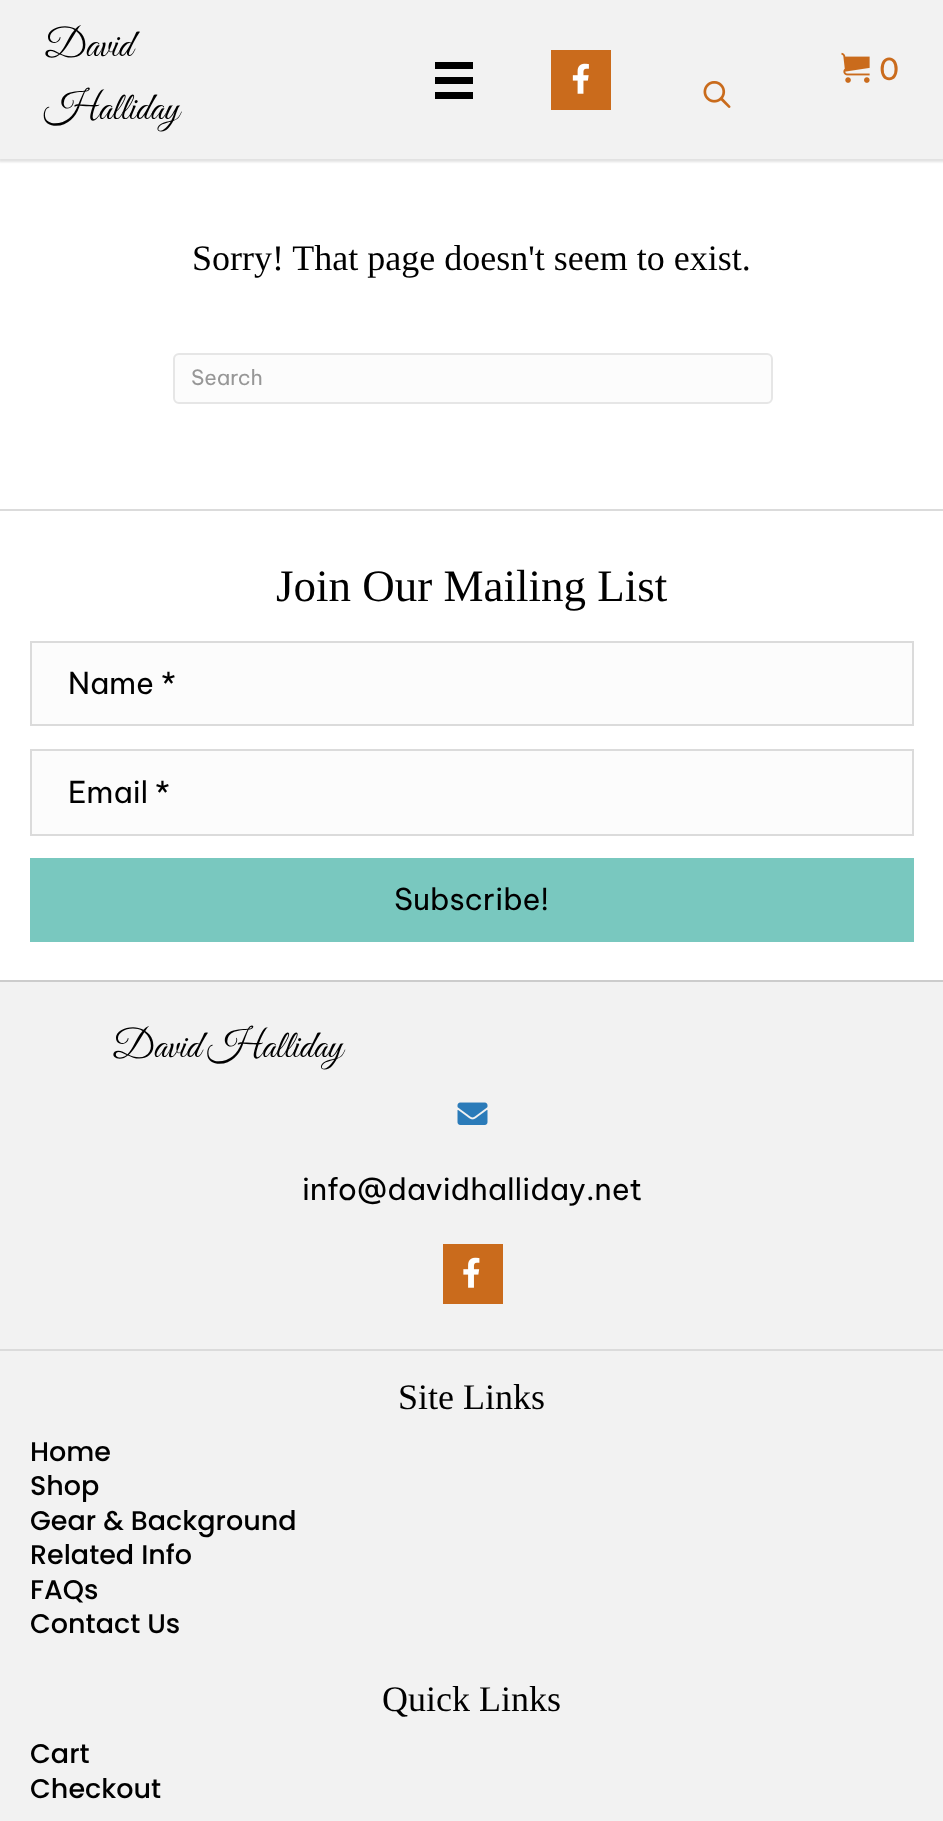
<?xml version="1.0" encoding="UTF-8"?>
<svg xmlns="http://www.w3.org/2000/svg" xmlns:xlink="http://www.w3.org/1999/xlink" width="943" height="1821">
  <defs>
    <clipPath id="clip1"><rect x="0" y="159" width="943" height="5" /></clipPath>
  </defs>
  <rect width="100%" height="100%" fill="#f2f2f2" />
  <rect y="159" width="943" height="350" fill="#ffffff" />
  <g clip-path="url(#clip1)">
    <rect x="-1" width="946" height="162" fill="#c1c1c1" fill-opacity="0.47" filter="blur(1px)" />
  </g>
  <rect x="435" y="62" width="38" height="7" fill="#000000" />
  <rect x="435" y="77" width="38" height="7" fill="#000000" />
  <rect x="435" y="92" width="38" height="7" fill="#000000" />
  <rect x="551" y="50" width="60" height="60" fill="#ca6b1c" />
  <image x="572" y="63" width="17" height="31" xlink:href="image1.png" />
  <image x="841" y="52" width="29" height="31" xlink:href="image2.png" />
  <image x="703" y="81" width="28" height="27" xlink:href="image3.png" />
  <rect x="174" y="354" width="598" height="49" rx="5" fill="#fcfcfc" stroke="#e6e6e6" stroke-width="2" />
  <rect y="511" width="943" height="469" fill="#ffffff" />
  <rect y="509" width="943" height="2" fill="#dbdbdb" />
  <rect x="31" y="642" width="882" height="83" fill="#fcfcfc" stroke="#dbdbdb" stroke-width="2" />
  <rect x="31" y="750" width="882" height="85" fill="#fcfcfc" stroke="#dbdbdb" stroke-width="2" />
  <rect x="30" y="858" width="884" height="84" fill="#79c8bf" />
  <rect y="980" width="943" height="2" fill="#cccccc" />
  <rect y="1349" width="943" height="2" fill="#dbdbdb" />
  <image x="457" y="1102" width="31" height="23" xlink:href="image4.png" />
  <rect x="443" y="1244" width="60" height="60" fill="#ca6b1c" />
  <image x="463" y="1257" width="17" height="31" xlink:href="image5.png" />
  <text x="44" y="56" style="font-family: Great Vibes; font-size: 39px; fill: #000000">David</text>
  <text x="44" y="119" style="font-family: Great Vibes; font-size: 39px; fill: #000000">Halliday</text>
  <text x="879" y="80" style="font-family: Be Vietnam Pro; font-size: 30px; fill: #ca6b1c">0</text>
  <text x="192" y="270" style="font-family: Liberation Serif; font-size: 36px; fill: #000000">Sorry! That page doesn't seem to exist.</text>
  <text x="191" y="385" style="font-family: Be Vietnam Pro; font-size: 21px; fill: #979797">Search</text>
  <text x="276" y="601" style="font-family: Liberation Serif; font-size: 45px; fill: #000000">Join Our Mailing List</text>
  <text x="68" y="694" style="font-family: Be Vietnam Pro; font-size: 30px; fill: #000000">Name *</text>
  <text x="68" y="803" style="font-family: Be Vietnam Pro; font-size: 30px; fill: #000000">Email *</text>
  <text x="394" y="910" style="font-family: Be Vietnam Pro; font-size: 30px; fill: #000000">Subscribe!</text>
  <text x="112" y="1057" style="font-family: Great Vibes; font-size: 39px; fill: #000000">David Halliday</text>
  <text x="302" y="1200" style="font-family: Be Vietnam Pro; font-size: 30px; fill: #000000">info@davidhalliday.net</text>
  <text x="398" y="1409" style="font-family: Liberation Serif; font-size: 36px; fill: #000000">Site Links</text>
  <text x="30" y="1461" style="font-family: Poppins; font-size: 27px; font-weight: 500; fill: #000000">Home</text>
  <text x="30" y="1495" style="font-family: Poppins; font-size: 27px; font-weight: 500; fill: #000000">Shop</text>
  <text x="30" y="1530" style="font-family: Poppins; font-size: 27px; font-weight: 500; fill: #000000">Gear &amp; Background</text>
  <text x="30" y="1564" style="font-family: Poppins; font-size: 27px; font-weight: 500; fill: #000000">Related Info</text>
  <text x="30" y="1599" style="font-family: Poppins; font-size: 27px; font-weight: 500; fill: #000000">FAQs</text>
  <text x="30" y="1633" style="font-family: Poppins; font-size: 27px; font-weight: 500; fill: #000000">Contact Us</text>
  <text x="382" y="1711" style="font-family: Liberation Serif; font-size: 36px; fill: #000000">Quick Links</text>
  <text x="30" y="1763" style="font-family: Poppins; font-size: 27px; font-weight: 500; fill: #000000">Cart</text>
  <text x="30" y="1798" style="font-family: Poppins; font-size: 27px; font-weight: 500; fill: #000000">Checkout</text>
</svg>
